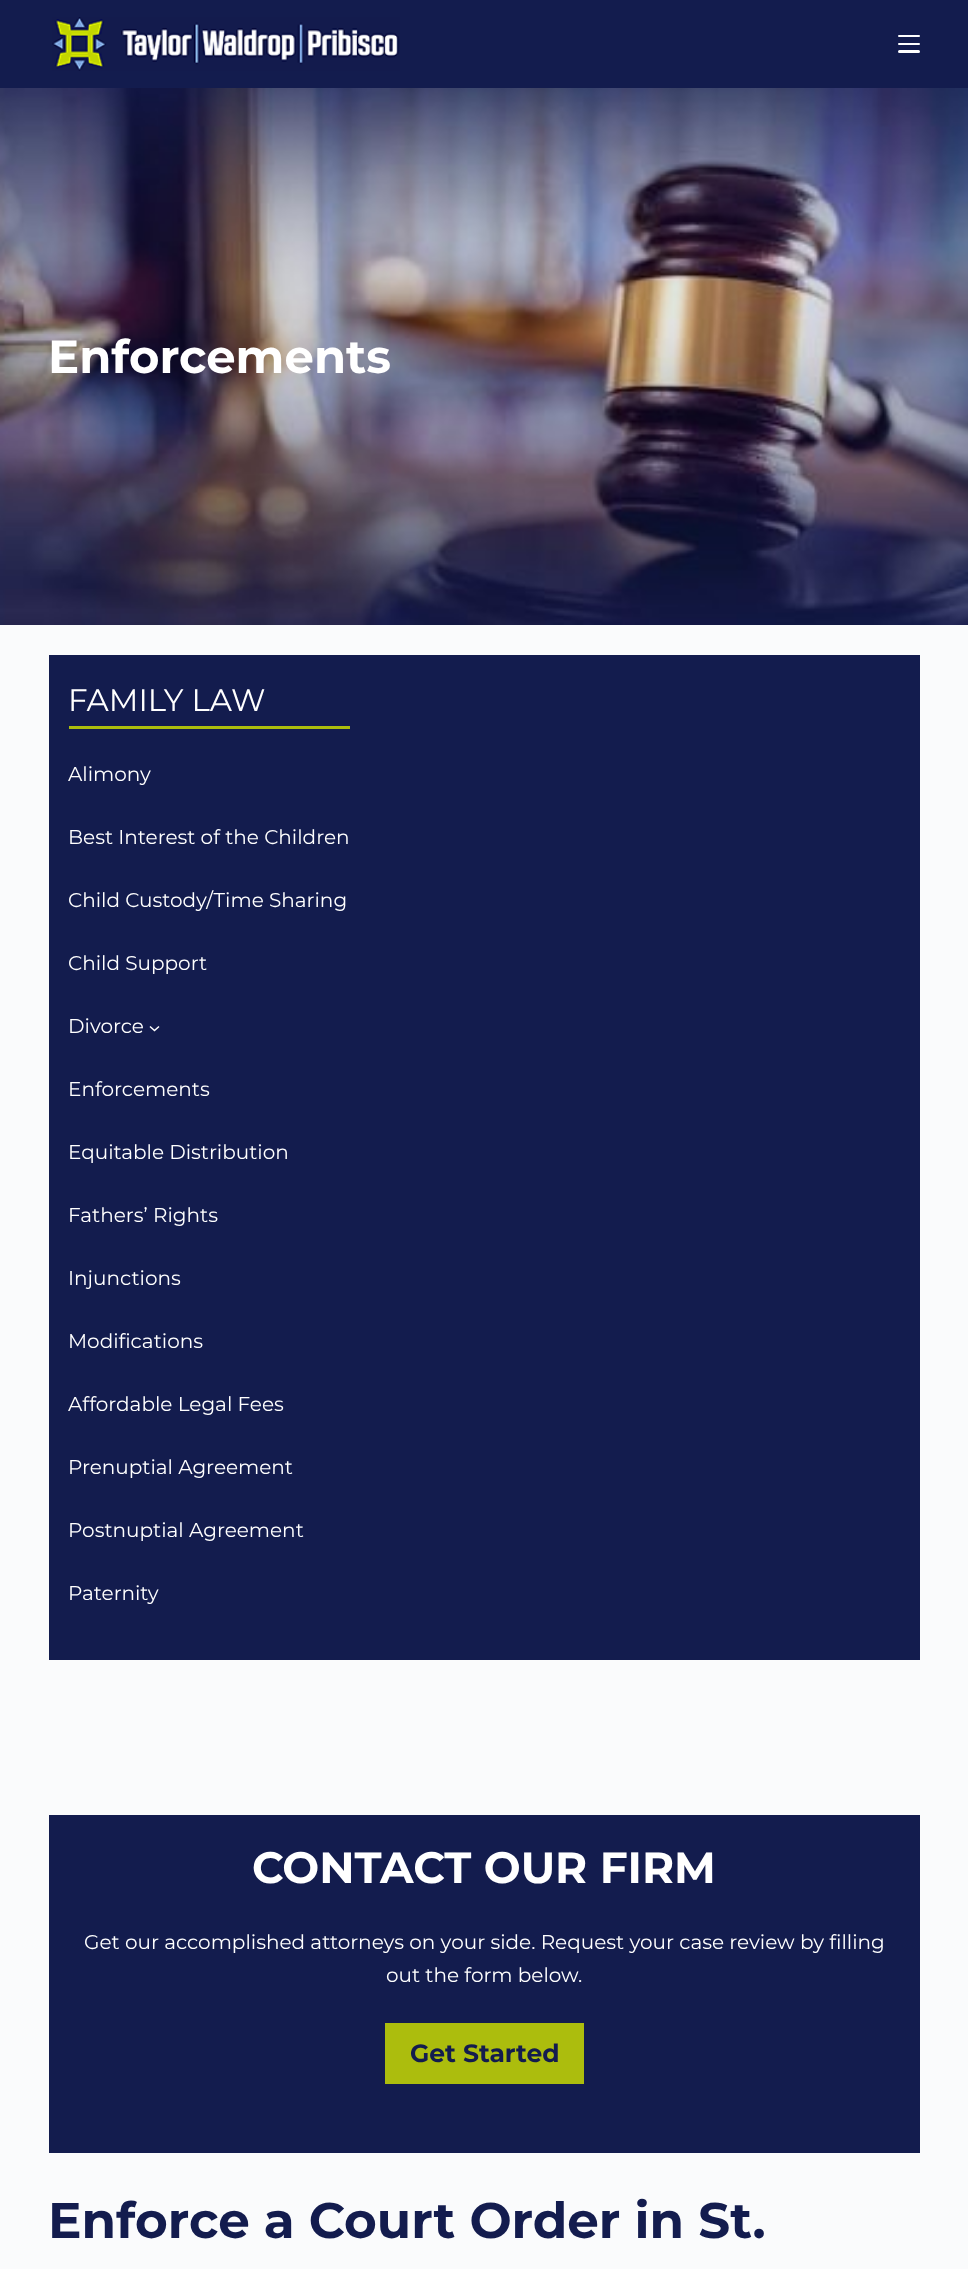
<?xml version="1.0" encoding="UTF-8"?>
<svg xmlns="http://www.w3.org/2000/svg" xmlns:xlink="http://www.w3.org/1999/xlink" width="968" height="2269">
  <rect width="100%" height="100%" fill="#fafbfc" />
  <rect width="968" height="88" fill="#131c4e" />
  <image x="52" y="17" width="348" height="54" xlink:href="image1.png" />
  <rect x="898" y="35" width="22" height="2" rx="1" fill="#ffffff" />
  <rect x="898" y="43" width="22" height="2" rx="1" fill="#ffffff" />
  <rect x="898" y="50" width="22" height="3" rx="1.5" fill="#ffffff" />
  <image x="0" y="88" width="968" height="537" xlink:href="image2.png" />
  <rect x="49" y="655" width="871" height="1005" fill="#131c4e" />
  <rect x="69" y="726" width="281" height="3" fill="#acbd0d" />
  <path d="M 150 1026.5 l 4.5 4 l 4.5 -4" fill="none" stroke="#ffffff" stroke-width="1.5" />
  <rect x="49" y="1815" width="871" height="338" fill="#131c4e" />
  <rect x="385" y="2023" width="199" height="61" fill="#acbd0d" />
  <text x="48" y="373" style="font-family: Montserrat; font-size: 46.5px; font-weight: bold; fill: #ffffff">Enforcements</text>
  <text x="68" y="711" style="font-family: Montserrat; font-size: 31px; fill: #ffffff">FAMILY LAW</text>
  <text x="68" y="781" style="font-family: Montserrat; font-size: 20px; fill: #ffffff">Alimony</text>
  <text x="68" y="844" style="font-family: Montserrat; font-size: 20px; fill: #ffffff">Best Interest of the Children</text>
  <text x="68" y="907" style="font-family: Montserrat; font-size: 20px; fill: #ffffff">Child Custody/Time Sharing</text>
  <text x="68" y="970" style="font-family: Montserrat; font-size: 20px; fill: #ffffff">Child Support</text>
  <text x="68" y="1033" style="font-family: Montserrat; font-size: 20px; fill: #ffffff">Divorce</text>
  <text x="68" y="1096" style="font-family: Montserrat; font-size: 20px; fill: #ffffff">Enforcements</text>
  <text x="68" y="1159" style="font-family: Montserrat; font-size: 20px; fill: #ffffff">Equitable Distribution</text>
  <text x="68" y="1222" style="font-family: Montserrat; font-size: 20px; fill: #ffffff">Fathers’ Rights</text>
  <text x="68" y="1285" style="font-family: Montserrat; font-size: 20px; fill: #ffffff">Injunctions</text>
  <text x="68" y="1348" style="font-family: Montserrat; font-size: 20px; fill: #ffffff">Modifications</text>
  <text x="68" y="1411" style="font-family: Montserrat; font-size: 20px; fill: #ffffff">Affordable Legal Fees</text>
  <text x="68" y="1474" style="font-family: Montserrat; font-size: 20px; fill: #ffffff">Prenuptial Agreement</text>
  <text x="68" y="1537" style="font-family: Montserrat; font-size: 20px; fill: #ffffff">Postnuptial Agreement</text>
  <text x="68" y="1600" style="font-family: Montserrat; font-size: 20px; fill: #ffffff">Paternity</text>
  <text x="252" y="1883" style="font-family: Montserrat; font-size: 43.75px; font-weight: bold; fill: #ffffff">CONTACT OUR FIRM</text>
  <text x="84" y="1949" style="font-family: Montserrat; font-size: 20px; fill: #ffffff">Get our accomplished attorneys on your side. Request your case review by filling</text>
  <text x="386" y="1982" style="font-family: Montserrat; font-size: 20px; fill: #ffffff">out the form below.</text>
  <text x="410" y="2062" style="font-family: Montserrat; font-size: 25px; font-weight: bold; fill: #131c4e">Get Started</text>
  <text x="48" y="2238" style="font-family: Montserrat; font-size: 50px; font-weight: bold; fill: #131c4e">Enforce a Court Order in St.</text>
</svg>
